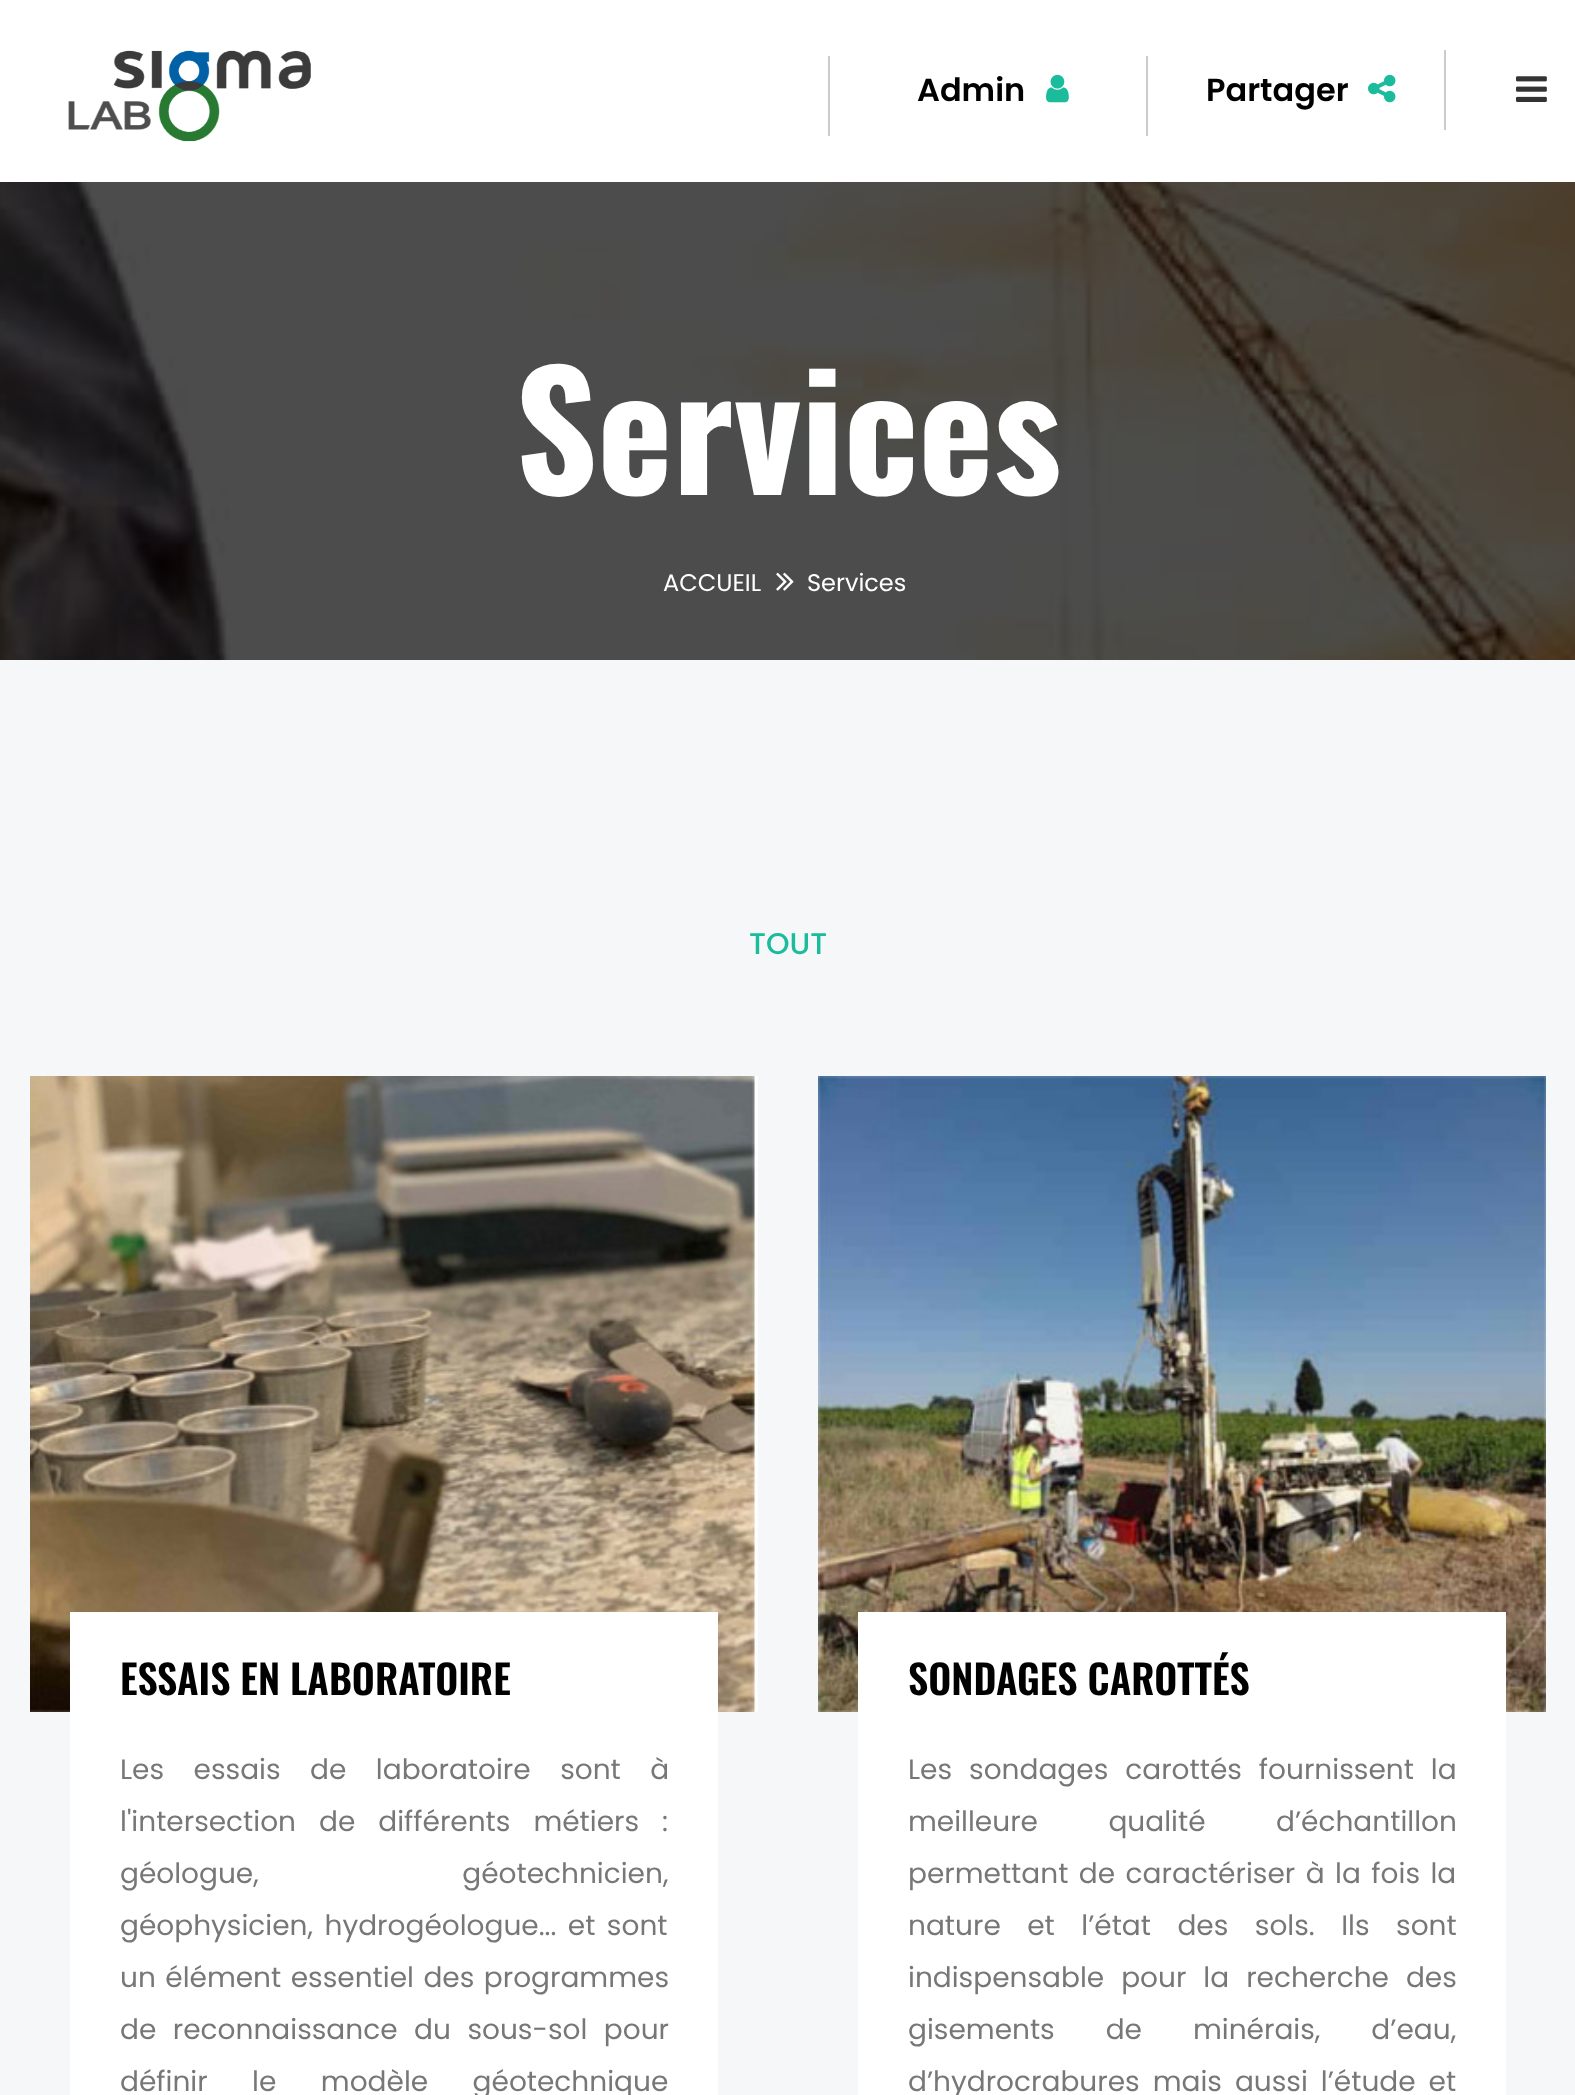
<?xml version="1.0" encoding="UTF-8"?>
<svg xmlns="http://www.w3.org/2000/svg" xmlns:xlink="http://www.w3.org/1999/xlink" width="1575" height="2095">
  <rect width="100%" height="100%" fill="#ffffff" />
  <image x="68" y="50" width="243" height="92" xlink:href="image1.png" />
  <rect x="828" y="56" width="2" height="80" fill="#cccccc" />
  <image x="1046" y="74" width="23" height="29" xlink:href="image2.png" />
  <rect x="1146" y="56" width="2" height="80" fill="#cccccc" />
  <image x="1368" y="74" width="28" height="29" xlink:href="image3.png" />
  <rect x="1444" y="50" width="2" height="80" fill="#cccccc" />
  <image x="1516" y="76" width="31" height="26" xlink:href="image4.png" />
  <image x="0" y="182" width="1575" height="478" xlink:href="image5.png" />
  <image x="776" y="572" width="18" height="19" xlink:href="image6.png" />
  <rect y="660" width="1575" height="1435" fill="#f6f7f8" />
  <image x="30" y="1076" width="728" height="636" xlink:href="image7.png" />
  <rect x="70" y="1612" width="648" height="483" fill="#ffffff" />
  <image x="818" y="1076" width="728" height="636" xlink:href="image8.png" />
  <rect x="858" y="1612" width="648" height="483" fill="#ffffff" />
  <text x="917" y="101" style="font-family: Poppins; font-size: 32px; font-weight: 600; fill: #000000">Admin</text>
  <text x="1206" y="101" style="font-family: Poppins; font-size: 32px; font-weight: 600; fill: #000000">Partager</text>
  <text x="515" y="495" style="font-family: Oswald; font-size: 160px; font-weight: bold; fill: #ffffff">Services</text>
  <text x="663" y="591" style="font-family: Poppins; font-size: 24px; fill: #ffffff">ACCUEIL</text>
  <text x="807" y="591" style="font-family: Poppins; font-size: 24px; fill: #ffffff">Services</text>
  <text x="749" y="954" style="font-family: Poppins; font-size: 30px; font-weight: 500; fill: #1abc9c">TOUT</text>
  <text x="120" y="1695" style="font-family: Oswald; font-size: 40px; font-weight: 600; fill: #000000">ESSAIS EN LABORATOIRE</text>
  <text x="120" y="1779" word-spacing="22" style="font-family: Poppins; font-size: 28px; fill: #777777">Les essais de laboratoire sont à</text>
  <text x="120" y="1831" word-spacing="15.5" style="font-family: Poppins; font-size: 28px; fill: #777777">l'intersection de différents métiers :</text>
  <text x="120" y="1883" word-spacing="196" style="font-family: Poppins; font-size: 28px; fill: #777777">géologue, géotechnicien,</text>
  <text x="120" y="1935" word-spacing="4" style="font-family: Poppins; font-size: 28px; fill: #777777">géophysicien, hydrogéologue... et sont</text>
  <text x="120" y="1987" word-spacing="2" style="font-family: Poppins; font-size: 28px; fill: #777777">un élément essentiel des programmes</text>
  <text x="120" y="2039" word-spacing="9" style="font-family: Poppins; font-size: 28px; fill: #777777">de reconnaissance du sous-sol pour</text>
  <text x="120" y="2091" word-spacing="37" style="font-family: Poppins; font-size: 28px; fill: #777777">définir le modèle géotechnique</text>
  <text x="908" y="1695" style="font-family: Oswald; font-size: 40px; font-weight: 600; fill: #000000">SONDAGES CAROTTÉS</text>
  <text x="908" y="1779" word-spacing="9.5" style="font-family: Poppins; font-size: 28px; fill: #777777">Les sondages carottés fournissent la</text>
  <text x="908" y="1831" word-spacing="63" style="font-family: Poppins; font-size: 28px; fill: #777777">meilleure qualité d’échantillon</text>
  <text x="908" y="1883" word-spacing="3" style="font-family: Poppins; font-size: 28px; fill: #777777">permettant de caractériser à la fois la</text>
  <text x="908" y="1935" word-spacing="19" style="font-family: Poppins; font-size: 28px; fill: #777777">nature et l’état des sols. Ils sont</text>
  <text x="908" y="1987" word-spacing="9.5" style="font-family: Poppins; font-size: 28px; fill: #777777">indispensable pour la recherche des</text>
  <text x="908" y="2039" word-spacing="43.5" style="font-family: Poppins; font-size: 28px; fill: #777777">gisements de minérais, d’eau,</text>
  <text x="908" y="2091" word-spacing="5.5" style="font-family: Poppins; font-size: 28px; fill: #777777">d’hydrocrabures mais aussi l’étude et</text>
</svg>
